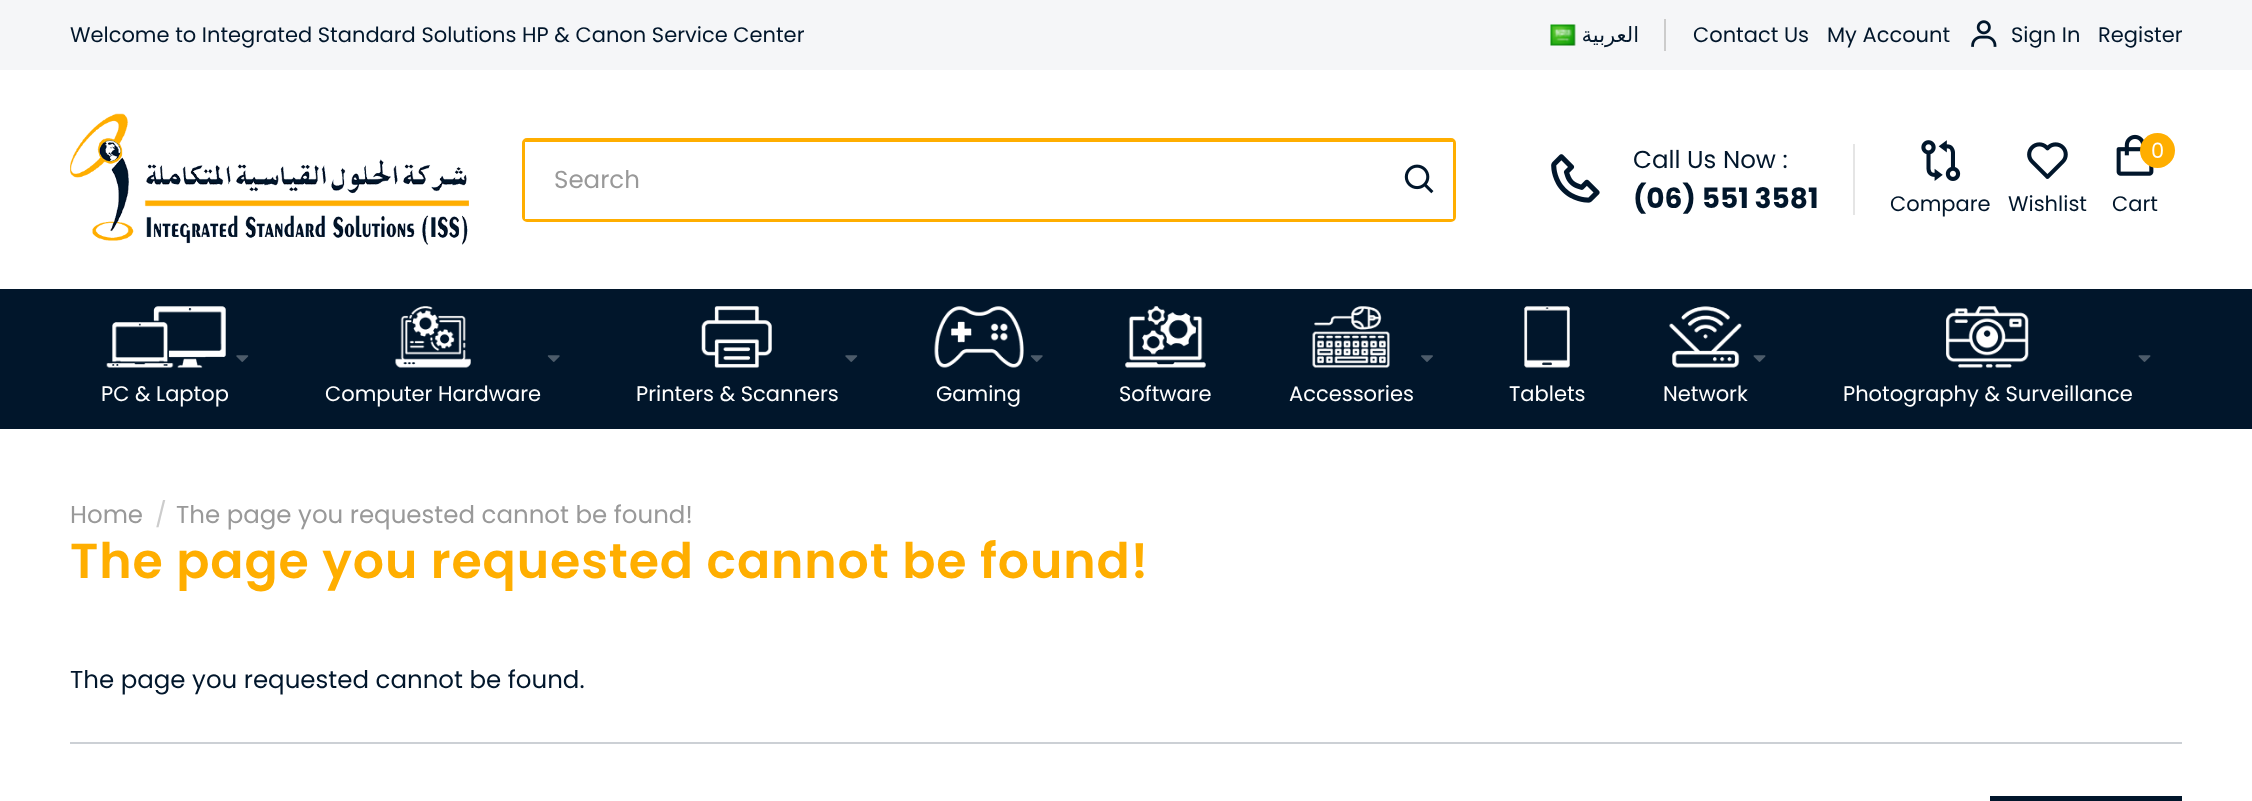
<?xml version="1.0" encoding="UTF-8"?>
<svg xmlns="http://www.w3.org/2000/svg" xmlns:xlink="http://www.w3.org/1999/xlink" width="2252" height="801">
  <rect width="100%" height="100%" fill="#ffffff" />
  <rect width="2252" height="70" fill="#f5f6f8" />
  <rect x="1664" y="19" width="2" height="32" fill="#cccccc" />
  <image x="1550" y="24" width="26" height="22" xlink:href="image1.png" />
  <image x="1971" y="20" width="26" height="27" xlink:href="image2.png" />
  <image x="70" y="113" width="399" height="132" xlink:href="image3.png" />
  <rect x="524" y="140" width="930" height="80" rx="3" fill="none" stroke="#ffae00" stroke-width="4" />
  <rect x="525" y="142" width="928" height="77" fill="#ffffff" />
  <image x="1404" y="164" width="30" height="30" xlink:href="image4.png" />
  <rect x="1853" y="144" width="2" height="71" fill="#e5e5e5" />
  <image x="1551" y="154" width="49" height="49" xlink:href="image5.png" />
  <image x="1921" y="140" width="40" height="41" xlink:href="image6.png" />
  <image x="2027" y="142" width="41" height="37" xlink:href="image7.png" />
  <image x="2116" y="134" width="38" height="42" xlink:href="image8.png" />
  <circle cx="2157.5" cy="150.5" r="17.5" fill="#ffae00" />
  <rect y="289" width="2252" height="140" fill="#01162b" />
  <image x="236" y="355" width="13" height="7" xlink:href="image9.png" />
  <image x="106" y="306" width="120" height="62" xlink:href="image10.png" />
  <image x="547" y="355" width="13" height="7" xlink:href="image11.png" />
  <image x="395" y="306" width="76" height="62" xlink:href="image12.png" />
  <image x="845" y="355" width="13" height="7" xlink:href="image9.png" />
  <image x="701" y="306" width="71" height="62" xlink:href="image13.png" />
  <image x="1030" y="355" width="13" height="7" xlink:href="image11.png" />
  <image x="934" y="306" width="90" height="62" xlink:href="image14.png" />
  <image x="1125" y="306" width="81" height="62" xlink:href="image15.png" />
  <image x="1421" y="355" width="12" height="7" xlink:href="image16.png" />
  <image x="1312" y="306" width="78" height="62" xlink:href="image17.png" />
  <image x="1524" y="306" width="46" height="62" xlink:href="image18.png" />
  <image x="1753" y="355" width="13" height="7" xlink:href="image19.png" />
  <image x="1669" y="306" width="73" height="62" xlink:href="image20.png" />
  <image x="2138" y="355" width="13" height="7" xlink:href="image19.png" />
  <image x="1946" y="306" width="83" height="62" xlink:href="image21.png" />
  <rect x="70" y="742" width="2112" height="2" fill="#ccd0d5" />
  <rect x="1990" y="796" width="192" height="5" fill="#01162b" />
  <text x="70" y="42" style="font-family: Poppins; font-size: 21px; fill: #01162b">Welcome to Integrated Standard Solutions HP &amp; Canon Service Center</text>
  <text x="1639" y="42" style="font-family: DejaVu Sans; font-size: 21px; direction: rtl; fill: #01162b">العربية</text>
  <text x="1693" y="42" style="font-family: Poppins; font-size: 21px; fill: #01162b">Contact Us</text>
  <text x="1827" y="42" style="font-family: Poppins; font-size: 21px; fill: #01162b">My Account</text>
  <text x="2011" y="42" style="font-family: Poppins; font-size: 21px; fill: #01162b">Sign In</text>
  <text x="2098" y="42" style="font-family: Poppins; font-size: 21px; fill: #01162b">Register</text>
  <text x="554" y="188" style="font-family: Poppins; font-size: 24.5px; fill: #999999">Search</text>
  <text x="1633" y="168" style="font-family: Poppins; font-size: 24.5px; fill: #01162b">Call Us Now :</text>
  <text x="1633" y="208" style="font-family: Poppins; font-size: 28px; font-weight: bold; fill: #01162b">(06) 551 3581</text>
  <text x="1890" y="211" style="font-family: Poppins; font-size: 21px; fill: #01162b">Compare</text>
  <text x="2008" y="211" style="font-family: Poppins; font-size: 21px; fill: #01162b">Wishlist</text>
  <text x="2151" y="158" style="font-family: Poppins; font-size: 21px; fill: #ffffff">0</text>
  <text x="2112" y="211" style="font-family: Poppins; font-size: 21px; fill: #01162b">Cart</text>
  <text x="101" y="401" style="font-family: Poppins; font-size: 21px; fill: #ffffff">PC &amp; Laptop</text>
  <text x="325" y="401" style="font-family: Poppins; font-size: 21px; fill: #ffffff">Computer Hardware</text>
  <text x="636" y="401" style="font-family: Poppins; font-size: 21px; fill: #ffffff">Printers &amp; Scanners</text>
  <text x="936" y="401" style="font-family: Poppins; font-size: 21px; fill: #ffffff">Gaming</text>
  <text x="1119" y="401" style="font-family: Poppins; font-size: 21px; fill: #ffffff">Software</text>
  <text x="1289" y="401" style="font-family: Poppins; font-size: 21px; fill: #ffffff">Accessories</text>
  <text x="1509" y="401" style="font-family: Poppins; font-size: 21px; fill: #ffffff">Tablets</text>
  <text x="1663" y="401" style="font-family: Poppins; font-size: 21px; fill: #ffffff">Network</text>
  <text x="1843" y="401" style="font-family: Poppins; font-size: 21px; fill: #ffffff">Photography &amp; Surveillance</text>
  <text x="70" y="523" style="font-family: Poppins; font-size: 24.5px; fill: #999999">Home</text>
  <text x="155" y="523" style="font-family: Poppins; font-size: 24.5px; fill: #cccccc">/</text>
  <text x="176" y="523" style="font-family: Poppins; font-size: 24.5px; fill: #999999">The page you requested cannot be found!</text>
  <text x="70" y="578" style="font-family: Poppins; font-size: 49px; font-weight: 600; letter-spacing: 0.9px; fill: #ffae00">The page you requested cannot be found!</text>
  <text x="70" y="688" style="font-family: Poppins; font-size: 24.5px; fill: #01162b">The page you requested cannot be found.</text>
</svg>
